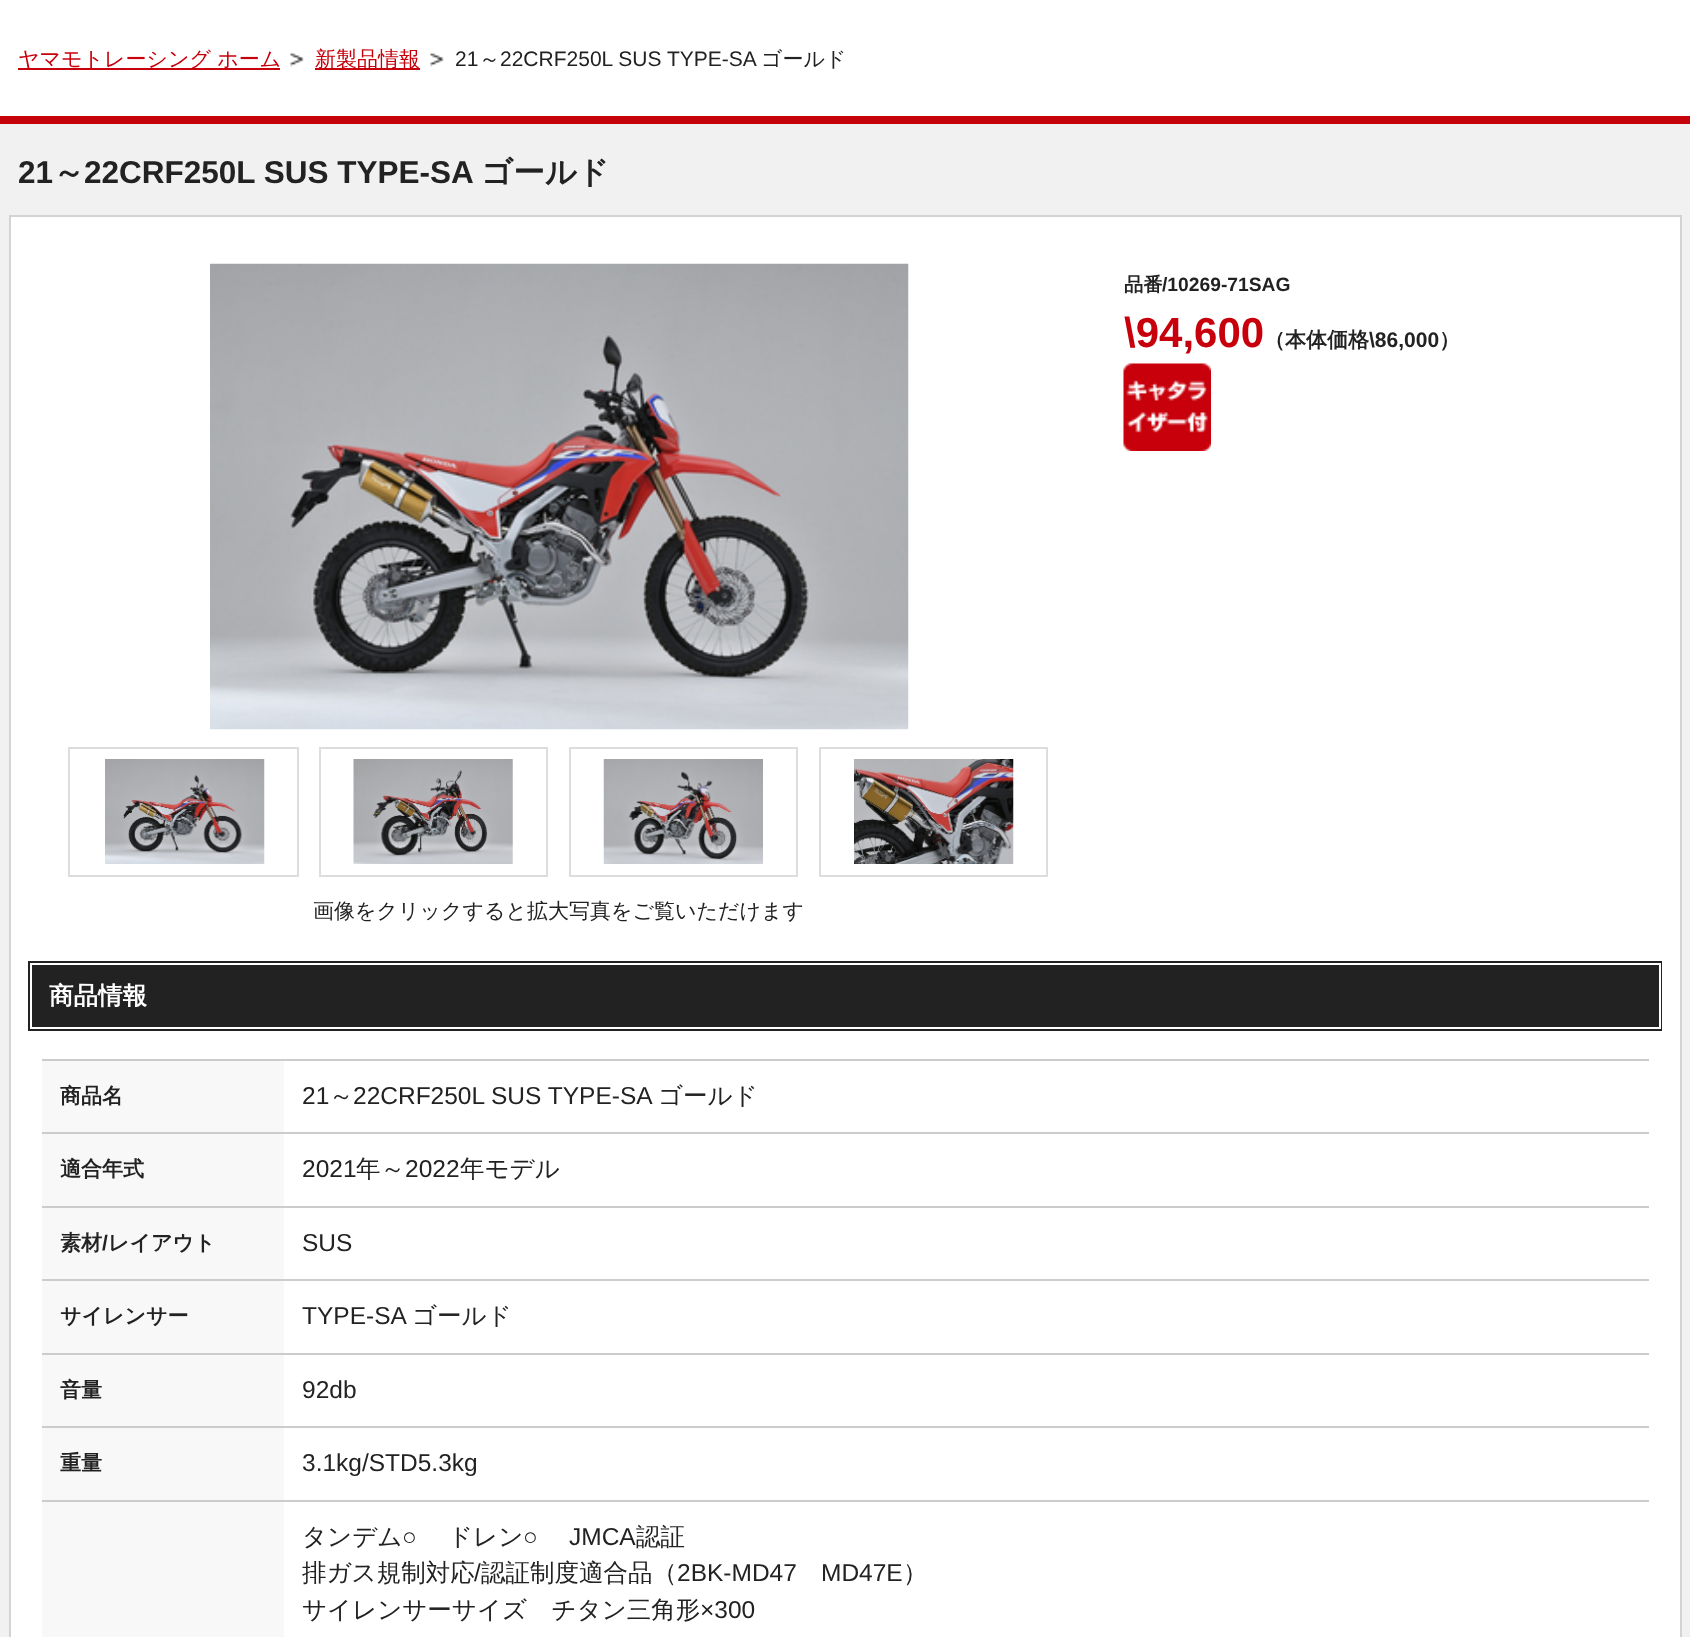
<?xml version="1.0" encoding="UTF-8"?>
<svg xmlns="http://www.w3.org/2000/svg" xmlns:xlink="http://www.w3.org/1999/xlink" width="1690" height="1637">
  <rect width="100%" height="100%" fill="#ffffff" />
  <rect x="18" y="68" width="262" height="2" fill="#c7000b" />
  <image x="290" y="52" width="14" height="15" xlink:href="image1.png" />
  <rect x="315" y="68" width="105" height="2" fill="#c7000b" />
  <image x="430" y="52" width="14" height="15" xlink:href="image1.png" />
  <rect y="124" width="1690" height="1513" fill="#f1f1f1" />
  <rect y="116" width="1690" height="8" fill="#c6020b" />
  <rect x="10" y="216" width="1671" height="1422" fill="#ffffff" stroke="#d3d3d3" stroke-width="2" />
  <image x="1123" y="363" width="88" height="88" xlink:href="image2.png" />
  <image x="210" y="263" width="699" height="467" xlink:href="image3.png" />
  <rect x="69" y="748" width="229" height="128" fill="none" stroke="#dddddd" stroke-width="2" />
  <image x="105" y="759" width="160" height="105" xlink:href="image4.png" />
  <rect x="320" y="748" width="227" height="128" fill="none" stroke="#dddddd" stroke-width="2" />
  <image x="353" y="759" width="160" height="105" xlink:href="image5.png" />
  <rect x="570" y="748" width="227" height="128" fill="none" stroke="#dddddd" stroke-width="2" />
  <image x="603" y="759" width="160" height="105" xlink:href="image6.png" />
  <rect x="820" y="748" width="227" height="128" fill="none" stroke="#dddddd" stroke-width="2" />
  <image x="854" y="759" width="160" height="105" xlink:href="image7.png" />
  <rect x="28" y="961" width="1634" height="70" fill="#222222" />
  <rect x="31" y="964" width="1629" height="64" fill="none" stroke="#ffffff" stroke-width="2" />
  <rect x="42" y="1059" width="1607" height="2" fill="#cccccc" />
  <rect x="42" y="1061" width="242" height="71" fill="#f8f8f8" />
  <rect x="42" y="1132" width="1607" height="2" fill="#cccccc" />
  <rect x="42" y="1134" width="242" height="72" fill="#f8f8f8" />
  <rect x="42" y="1206" width="1607" height="2" fill="#cccccc" />
  <rect x="42" y="1208" width="242" height="71" fill="#f8f8f8" />
  <rect x="42" y="1279" width="1607" height="2" fill="#cccccc" />
  <rect x="42" y="1281" width="242" height="72" fill="#f8f8f8" />
  <rect x="42" y="1353" width="1607" height="2" fill="#cccccc" />
  <rect x="42" y="1355" width="242" height="71" fill="#f8f8f8" />
  <rect x="42" y="1426" width="1607" height="2" fill="#cccccc" />
  <rect x="42" y="1428" width="242" height="72" fill="#f8f8f8" />
  <rect x="42" y="1500" width="1607" height="2" fill="#cccccc" />
  <rect x="42" y="1502" width="242" height="135" fill="#f8f8f8" />
  <text x="18" y="66" style="font-family: WenQuanYi Zen Hei; font-size: 21px; font-weight: 500; fill: #c7000b">ヤマモトレーシング ホーム</text>
  <text x="315" y="66" style="font-family: WenQuanYi Zen Hei; font-size: 21px; font-weight: 500; fill: #c7000b">新製品情報</text>
  <text x="455" y="66" style="font-family: Liberation Sans; font-size: 21px; fill: #222222">21</text>
  <text x="479" y="66" style="font-family: WenQuanYi Zen Hei; font-size: 21px; font-weight: 500; fill: #222222">～</text>
  <text x="500" y="66" style="font-family: Liberation Sans; font-size: 21px; fill: #222222">22CRF250L SUS TYPE-SA</text>
  <text x="761" y="66" style="font-family: WenQuanYi Zen Hei; font-size: 21px; font-weight: 500; fill: #222222">ゴールド</text>
  <text x="18" y="183" style="font-family: Liberation Sans; font-size: 31.5px; font-weight: bold; fill: #222222">21</text>
  <text x="53" y="183" style="font-family: WenQuanYi Zen Hei; font-size: 31.5px; font-weight: bold; fill: #222222">～</text>
  <text x="84" y="183" style="font-family: Liberation Sans; font-size: 31.5px; font-weight: bold; fill: #222222">22CRF250L SUS TYPE-SA</text>
  <text x="481" y="183" style="font-family: WenQuanYi Zen Hei; font-size: 31.5px; font-weight: bold; fill: #222222">ゴールド</text>
  <text x="1124" y="291" style="font-family: WenQuanYi Zen Hei; font-size: 19.25px; font-weight: bold; fill: #222222">品番</text>
  <text x="1162" y="291" style="font-family: Liberation Sans; font-size: 19.25px; font-weight: bold; fill: #222222">/10269-71SAG</text>
  <text x="1124" y="347" style="font-family: Liberation Sans; font-size: 42px; font-weight: bold; fill: #c7000b">\94,600</text>
  <text x="1264" y="347" style="font-family: WenQuanYi Zen Hei; font-size: 21px; font-weight: bold; fill: #222222">（本体価格</text>
  <text x="1369" y="347" style="font-family: Liberation Sans; font-size: 21px; font-weight: bold; fill: #222222">\86,000</text>
  <text x="1439" y="347" style="font-family: WenQuanYi Zen Hei; font-size: 21px; font-weight: bold; fill: #222222">）</text>
  <text x="313" y="918" style="font-family: WenQuanYi Zen Hei; font-size: 21px; font-weight: 500; fill: #222222">画像をクリックすると拡大写真をご覧いただけます</text>
  <text x="49" y="1004" style="font-family: WenQuanYi Zen Hei; font-size: 24.5px; font-weight: bold; fill: #ffffff">商品情報</text>
  <text x="60" y="1103" style="font-family: WenQuanYi Zen Hei; font-size: 21px; font-weight: bold; fill: #222222">商品名</text>
  <text x="302" y="1104" style="font-family: Liberation Sans; font-size: 24.5px; fill: #222222">21</text>
  <text x="329" y="1104" style="font-family: WenQuanYi Zen Hei; font-size: 24.5px; font-weight: 500; fill: #222222">～</text>
  <text x="353" y="1104" style="font-family: Liberation Sans; font-size: 24.5px; fill: #222222">22CRF250L SUS TYPE-SA</text>
  <text x="658" y="1104" style="font-family: WenQuanYi Zen Hei; font-size: 24.5px; font-weight: 500; fill: #222222">ゴールド</text>
  <text x="60" y="1176" style="font-family: WenQuanYi Zen Hei; font-size: 21px; font-weight: bold; fill: #222222">適合年式</text>
  <text x="302" y="1177" style="font-family: Liberation Sans; font-size: 24.5px; fill: #222222">2021</text>
  <text x="356" y="1177" style="font-family: WenQuanYi Zen Hei; font-size: 24.5px; font-weight: 500; fill: #222222">年～</text>
  <text x="405" y="1177" style="font-family: Liberation Sans; font-size: 24.5px; fill: #222222">2022</text>
  <text x="460" y="1177" style="font-family: WenQuanYi Zen Hei; font-size: 24.5px; font-weight: 500; fill: #222222">年モデル</text>
  <text x="60" y="1250" style="font-family: WenQuanYi Zen Hei; font-size: 21px; font-weight: bold; fill: #222222">素材</text>
  <text x="102" y="1250" style="font-family: Liberation Sans; font-size: 21px; font-weight: bold; fill: #222222">/</text>
  <text x="108" y="1250" style="font-family: WenQuanYi Zen Hei; font-size: 21px; font-weight: bold; fill: #222222">レイアウト</text>
  <text x="302" y="1251" style="font-family: Liberation Sans; font-size: 24.5px; fill: #222222">SUS</text>
  <text x="60" y="1323" style="font-family: WenQuanYi Zen Hei; font-size: 21px; font-weight: bold; fill: #222222">サイレンサー</text>
  <text x="302" y="1324" style="font-family: Liberation Sans; font-size: 24.5px; fill: #222222">TYPE-SA</text>
  <text x="412" y="1324" style="font-family: WenQuanYi Zen Hei; font-size: 24.5px; font-weight: 500; fill: #222222">ゴールド</text>
  <text x="60" y="1397" style="font-family: WenQuanYi Zen Hei; font-size: 21px; font-weight: bold; fill: #222222">音量</text>
  <text x="302" y="1398" style="font-family: Liberation Sans; font-size: 24.5px; fill: #222222">92db</text>
  <text x="60" y="1470" style="font-family: WenQuanYi Zen Hei; font-size: 21px; font-weight: bold; fill: #222222">重量</text>
  <text x="302" y="1471" style="font-family: Liberation Sans; font-size: 24.5px; fill: #222222">3.1kg/STD5.3kg</text>
  <text x="302" y="1545" style="font-family: WenQuanYi Zen Hei; font-size: 24.5px; font-weight: 500; fill: #222222">タンデム</text>
  <text x="402" y="1545" style="font-family: Liberation Sans; font-size: 24.5px; fill: #222222">○</text>
  <text x="448" y="1545" style="font-family: WenQuanYi Zen Hei; font-size: 24.5px; font-weight: 500; fill: #222222">ドレン</text>
  <text x="523" y="1545" style="font-family: Liberation Sans; font-size: 24.5px; fill: #222222">○</text>
  <text x="569" y="1545" style="font-family: Liberation Sans; font-size: 24.5px; fill: #222222">JMCA</text>
  <text x="636" y="1545" style="font-family: WenQuanYi Zen Hei; font-size: 24.5px; font-weight: 500; fill: #222222">認証</text>
  <text x="302" y="1581" style="font-family: WenQuanYi Zen Hei; font-size: 24.5px; font-weight: 500; fill: #222222">排ガス規制対応</text>
  <text x="474" y="1581" style="font-family: Liberation Sans; font-size: 24.5px; fill: #222222">/</text>
  <text x="481" y="1581" style="font-family: WenQuanYi Zen Hei; font-size: 24.5px; font-weight: 500; fill: #222222">認証制度適合品（</text>
  <text x="677" y="1581" style="font-family: Liberation Sans; font-size: 24.5px; fill: #222222">2BK-MD47</text>
  <text x="821" y="1581" style="font-family: Liberation Sans; font-size: 24.5px; fill: #222222">MD47E</text>
  <text x="903" y="1581" style="font-family: WenQuanYi Zen Hei; font-size: 24.5px; font-weight: 500; fill: #222222">）</text>
  <text x="302" y="1618" style="font-family: WenQuanYi Zen Hei; font-size: 24.5px; font-weight: 500; fill: #222222">サイレンサーサイズ　チタン三角形</text>
  <text x="700" y="1618" style="font-family: Liberation Sans; font-size: 24.5px; fill: #222222">×300</text>
</svg>
